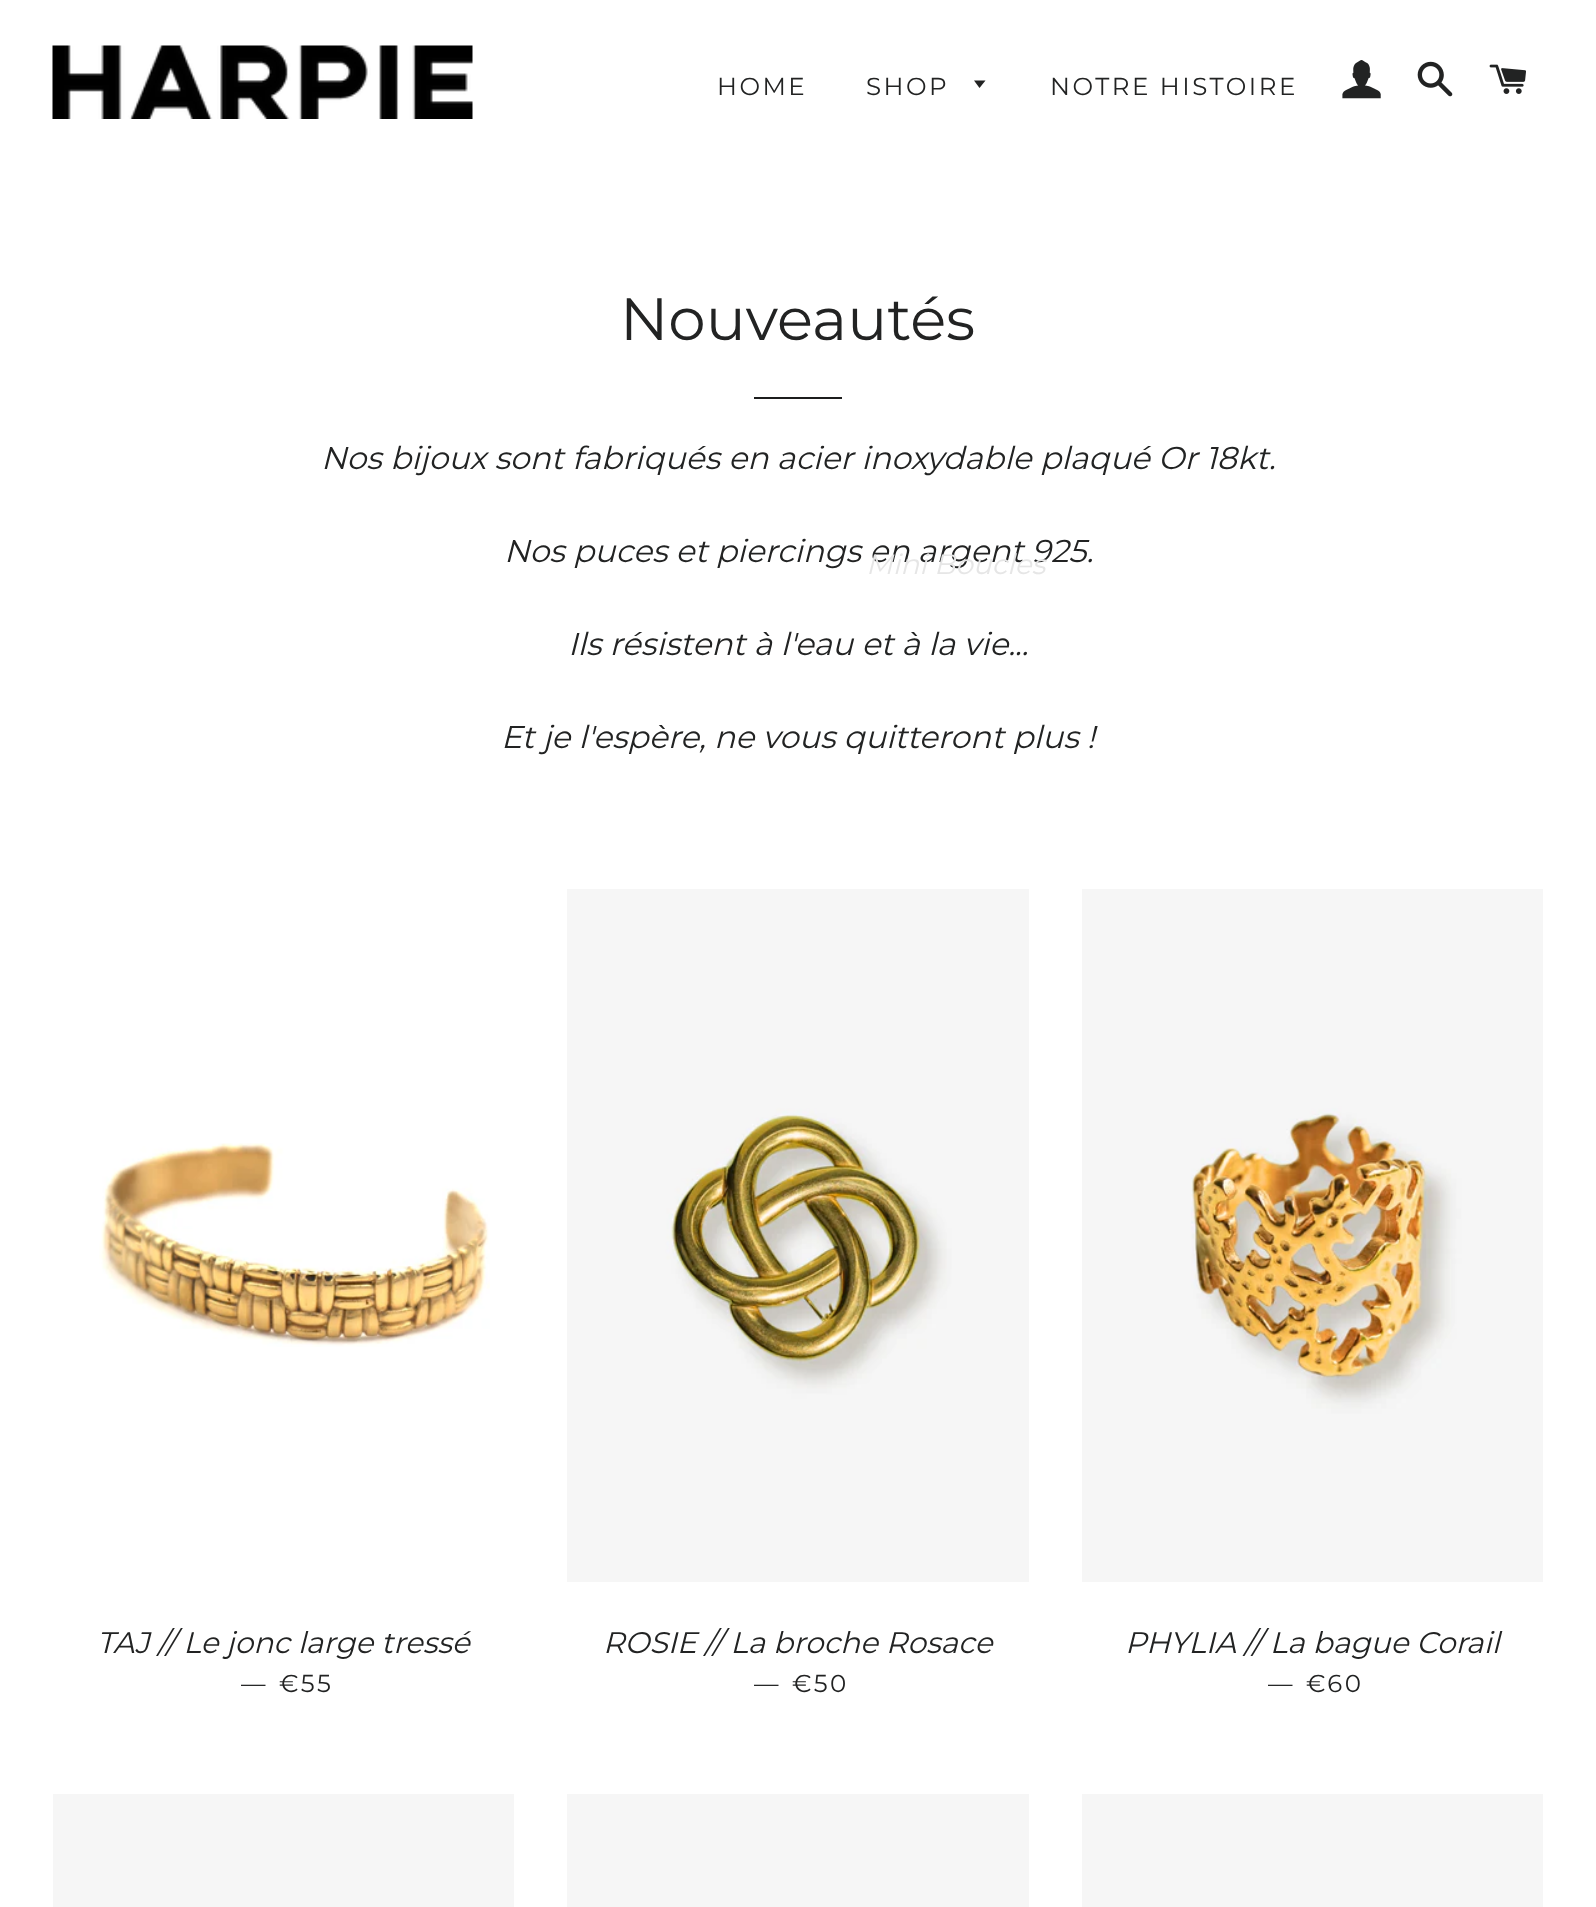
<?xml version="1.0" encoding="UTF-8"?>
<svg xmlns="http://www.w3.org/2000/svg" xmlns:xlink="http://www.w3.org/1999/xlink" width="1596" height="1907">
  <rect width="100%" height="100%" fill="#ffffff" />
  <image x="52" y="45" width="421" height="74" xlink:href="image1.png" />
  <path d="M 974 80.5 l 5.5 7.5 l 6 -7.5 z" fill="#222323" />
  <image x="1342" y="60" width="39" height="39" xlink:href="image2.png" />
  <image x="1417" y="61" width="36" height="36" xlink:href="image3.png" />
  <image x="1489" y="64" width="37" height="30" xlink:href="image4.png" />
  <rect x="754" y="397" width="88" height="2" fill="#1c1d1d" />
  <image x="99" y="1143" width="391" height="204" xlink:href="image5.png" />
  <image x="567" y="889" width="462" height="693" xlink:href="image6.png" />
  <image x="1082" y="889" width="461" height="693" xlink:href="image7.png" />
  <rect x="53" y="1794" width="461" height="113" fill="#f6f6f6" />
  <rect x="567" y="1794" width="462" height="113" fill="#f6f6f6" />
  <rect x="1082" y="1794" width="461" height="113" fill="#f6f6f6" />
  <text x="717" y="95" style="font-family: Montserrat; font-size: 24.5px; font-weight: 100; letter-spacing: 2.5px; fill: #222323">HOME</text>
  <text x="866" y="95" style="font-family: Montserrat; font-size: 24.5px; font-weight: 100; letter-spacing: 2.5px; fill: #222323">SHOP</text>
  <text x="1050" y="95" style="font-family: Montserrat; font-size: 24.5px; font-weight: 100; letter-spacing: 2.5px; fill: #222323">NOTRE HISTOIRE</text>
  <text x="620" y="340" style="font-family: Montserrat; font-size: 59.5px; font-weight: 100; fill: #222323">Nouveautés</text>
  <text x="321" y="469" style="font-family: Montserrat; font-size: 31.5px; font-weight: 100; font-style: italic; fill: #222323">Nos bijoux sont fabriqués en acier inoxydable plaqué Or 18kt.</text>
  <text x="504" y="562" style="font-family: Montserrat; font-size: 31.5px; font-weight: 100; font-style: italic; fill: #222323">Nos puces et piercings en argent 925.</text>
  <text x="866" y="574" style="font-family: Montserrat; font-size: 28px; font-weight: 100; font-style: italic; fill: #e6e6e6">Mini Boucles</text>
  <text x="568" y="655" style="font-family: Montserrat; font-size: 31.5px; font-weight: 100; font-style: italic; fill: #222323">Ils résistent à l'eau et à la vie...</text>
  <text x="501" y="748" style="font-family: Montserrat; font-size: 31.5px; font-weight: 100; font-style: italic; fill: #222323">Et je l'espère, ne vous quitteront plus !</text>
  <text x="97" y="1653" style="font-family: Montserrat; font-size: 29.75px; font-weight: 100; font-style: italic; fill: #222323">TAJ // Le jonc large tressé</text>
  <text x="241" y="1692" style="font-family: Montserrat; font-size: 24.5px; font-weight: 100; fill: #222323">—</text>
  <text x="279" y="1692" style="font-family: Montserrat; font-size: 24.5px; font-weight: 100; letter-spacing: 2.5px; fill: #222323">€55</text>
  <text x="603" y="1653" style="font-family: Montserrat; font-size: 29.75px; font-weight: 100; font-style: italic; fill: #222323">ROSIE // La broche Rosace</text>
  <text x="754" y="1692" style="font-family: Montserrat; font-size: 24.5px; font-weight: 100; fill: #222323">—</text>
  <text x="792" y="1692" style="font-family: Montserrat; font-size: 24.5px; font-weight: 100; letter-spacing: 2.5px; fill: #222323">€50</text>
  <text x="1125" y="1653" style="font-family: Montserrat; font-size: 29.75px; font-weight: 100; font-style: italic; fill: #222323">PHYLIA // La bague Corail</text>
  <text x="1268" y="1692" style="font-family: Montserrat; font-size: 24.5px; font-weight: 100; fill: #222323">—</text>
  <text x="1306" y="1692" style="font-family: Montserrat; font-size: 24.5px; font-weight: 100; letter-spacing: 2.5px; fill: #222323">€60</text>
</svg>
